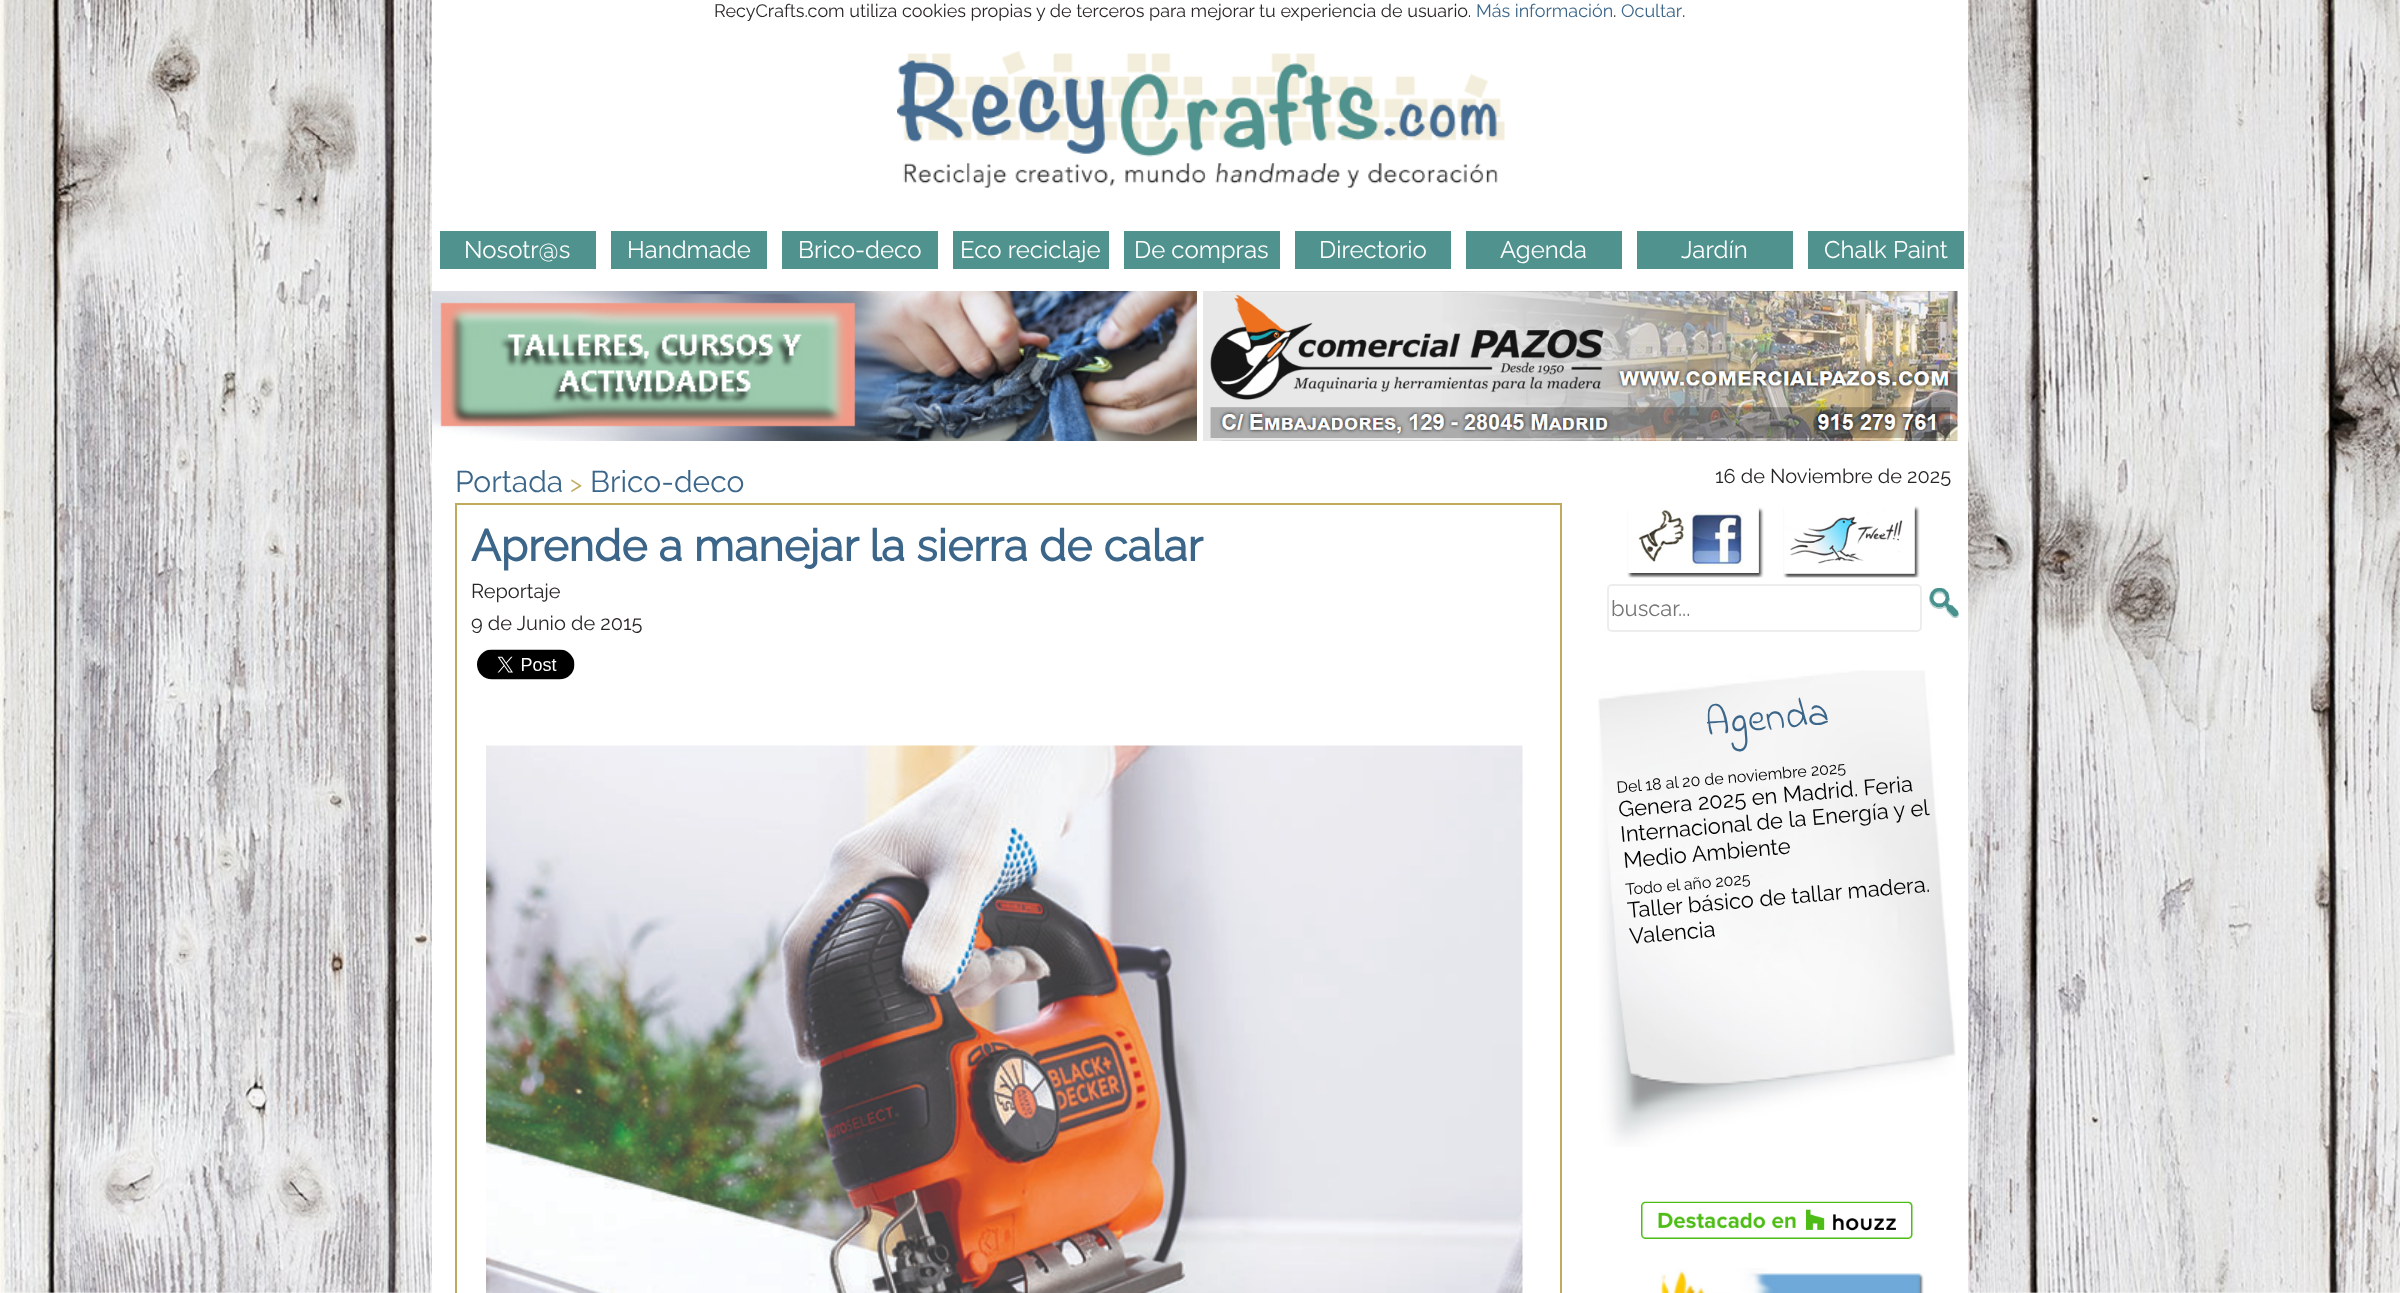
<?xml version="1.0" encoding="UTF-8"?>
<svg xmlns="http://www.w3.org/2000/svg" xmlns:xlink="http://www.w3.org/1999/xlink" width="2400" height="1293">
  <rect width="100%" height="100%" fill="#ffffff" />
  <image x="0" y="0" width="2400" height="1293" xlink:href="image1.png" />
  <rect x="432" width="1536" height="1293" fill="#ffffff" />
  <image x="897" y="51" width="608" height="137" xlink:href="image2.png" />
  <rect x="440" y="231" width="156" height="38" fill="#50928e" />
  <rect x="611" y="231" width="156" height="38" fill="#50928e" />
  <rect x="782" y="231" width="156" height="38" fill="#50928e" />
  <rect x="953" y="231" width="156" height="38" fill="#50928e" />
  <rect x="1124" y="231" width="156" height="38" fill="#50928e" />
  <rect x="1295" y="231" width="156" height="38" fill="#50928e" />
  <rect x="1466" y="231" width="156" height="38" fill="#50928e" />
  <rect x="1637" y="231" width="156" height="38" fill="#50928e" />
  <rect x="1808" y="231" width="156" height="38" fill="#50928e" />
  <image x="432" y="291" width="765" height="150" xlink:href="image3.png" />
  <image x="1203" y="291" width="755" height="150" xlink:href="image4.png" />
  <rect x="456" y="504" width="1105" height="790" fill="none" stroke="#c0aa5c" stroke-width="2" />
  <image x="477" y="649" width="98" height="31" xlink:href="image5.png" />
  <image x="486" y="745" width="1037" height="548" xlink:href="image6.png" />
  <image x="1627" y="507" width="137" height="71" xlink:href="image7.png" />
  <image x="1783" y="506" width="137" height="72" xlink:href="image8.png" />
  <rect x="1608" y="585" width="313" height="46" rx="4" fill="none" stroke="#ededed" stroke-width="2" />
  <image x="1929" y="588" width="30" height="30" xlink:href="image9.png" />
  <image x="1598" y="670" width="358" height="477" xlink:href="image10.png" />
  <image x="1641" y="1201" width="272" height="38" xlink:href="image11.png" />
  <image x="1660" y="1268" width="264" height="25" xlink:href="image12.png" />
  <text x="714" y="17" style="font-family: Raleway; font-size: 18px; font-weight: 100; fill: #282525">RecyCrafts.com utiliza cookies propias y de terceros para mejorar tu experiencia de usuario.</text>
  <text x="1476" y="17" style="font-family: Raleway; font-size: 18px; font-weight: 100; fill: #3b6689">Más información</text>
  <text x="1613" y="17" style="font-family: Raleway; font-size: 18px; font-weight: 100; fill: #282525">.</text>
  <text x="1621" y="17" style="font-family: Raleway; font-size: 18px; font-weight: 100; fill: #3b6689">Ocultar</text>
  <text x="1682" y="17" style="font-family: Raleway; font-size: 18px; font-weight: 100; fill: #282525">.</text>
  <text x="464" y="258" style="font-family: Raleway; font-size: 24px; font-weight: 100; fill: #ffffff">Nosotr@s</text>
  <text x="627" y="258" style="font-family: Raleway; font-size: 24px; font-weight: 100; fill: #ffffff">Handmade</text>
  <text x="798" y="258" style="font-family: Raleway; font-size: 24px; font-weight: 100; fill: #ffffff">Brico-deco</text>
  <text x="960" y="258" style="font-family: Raleway; font-size: 24px; font-weight: 100; fill: #ffffff">Eco reciclaje</text>
  <text x="1134" y="258" style="font-family: Raleway; font-size: 24px; font-weight: 100; fill: #ffffff">De compras</text>
  <text x="1319" y="258" style="font-family: Raleway; font-size: 24px; font-weight: 100; fill: #ffffff">Directorio</text>
  <text x="1500" y="258" style="font-family: Raleway; font-size: 24px; font-weight: 100; fill: #ffffff">Agenda</text>
  <text x="1681" y="258" style="font-family: Raleway; font-size: 24px; font-weight: 100; fill: #ffffff">Jardín</text>
  <text x="1824" y="258" style="font-family: Raleway; font-size: 24px; font-weight: 100; fill: #ffffff">Chalk Paint</text>
  <text x="455" y="492" style="font-family: Raleway; font-size: 30px; font-weight: 100; fill: #3b6689">Portada</text>
  <text x="570" y="492" style="font-family: Raleway; font-size: 24px; font-weight: 100; fill: #c0aa5c">&gt;</text>
  <text x="590" y="492" style="font-family: Raleway; font-size: 30px; font-weight: 100; fill: #3b6689">Brico-deco</text>
  <text x="471" y="561" style="font-family: Raleway; font-size: 44px; font-weight: bold; fill: #3b6689">Aprende a manejar la sierra de calar</text>
  <text x="471" y="598" style="font-family: Raleway; font-size: 20px; font-weight: 100; fill: #282525">Reportaje</text>
  <text x="471" y="630" style="font-family: Raleway; font-size: 20px; font-weight: 100; fill: #282525">9 de Junio de 2015</text>
  <text x="1715" y="483" style="font-family: Raleway; font-size: 20px; font-weight: 100; fill: #282525">16 de Noviembre de 2025</text>
  <text x="1611" y="616" style="font-family: Raleway; font-size: 22px; font-weight: 100; fill: #757575">buscar...</text>
  <text x="1706" y="735" transform="rotate(-5 1706 735)" style="font-family: Indie Flower; font-size: 40px; fill: #3b6689">Agenda</text>
  <text x="1617" y="793" transform="rotate(-5 1617 793)" style="font-family: Raleway; font-size: 16px; font-weight: 100; fill: #000000">Del 18 al 20 de noviembre 2025</text>
  <text x="1619" y="817" transform="rotate(-5 1619 817)" style="font-family: Raleway; font-size: 22px; font-weight: 100; fill: #000000">Genera 2025 en Madrid. Feria</text>
  <text x="1621" y="842" transform="rotate(-5 1621 842)" style="font-family: Raleway; font-size: 22px; font-weight: 100; fill: #000000">Internacional de la Energía y el</text>
  <text x="1624" y="868" transform="rotate(-5 1624 868)" style="font-family: Raleway; font-size: 22px; font-weight: 100; fill: #000000">Medio Ambiente</text>
  <text x="1626" y="895" transform="rotate(-5 1626 895)" style="font-family: Raleway; font-size: 16px; font-weight: 100; fill: #000000">Todo el año 2025</text>
  <text x="1628" y="918" transform="rotate(-5 1628 918)" style="font-family: Raleway; font-size: 22px; font-weight: 100; fill: #000000">Taller básico de tallar madera.</text>
  <text x="1630" y="944" transform="rotate(-5 1630 944)" style="font-family: Raleway; font-size: 22px; font-weight: 100; fill: #000000">Valencia</text>
</svg>
